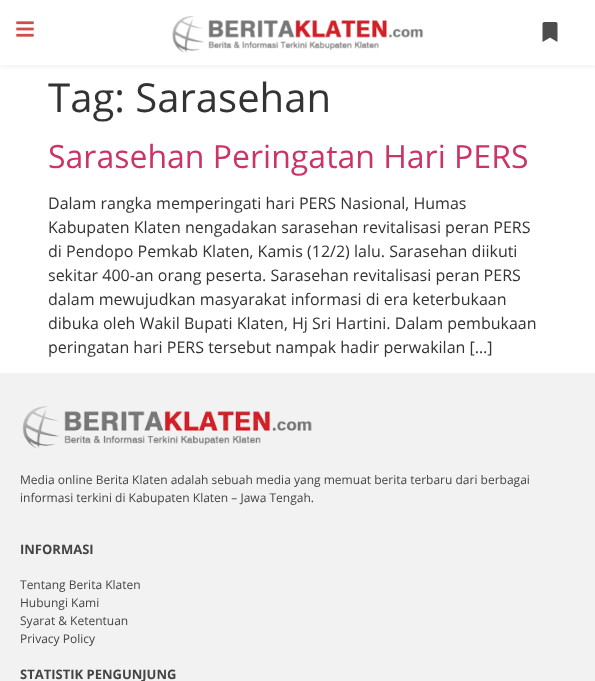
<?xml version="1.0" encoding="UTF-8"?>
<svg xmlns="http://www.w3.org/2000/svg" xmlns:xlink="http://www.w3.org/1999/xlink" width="595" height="681">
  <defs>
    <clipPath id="clip1"><rect x="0" y="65" width="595" height="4" /></clipPath>
  </defs>
  <rect width="100%" height="100%" fill="#ffffff" />
  <g clip-path="url(#clip1)">
    <rect width="595" height="65" fill="#000000" fill-opacity="0.09" filter="blur(5px)" />
  </g>
  <image x="16" y="21" width="18" height="16" xlink:href="image1.png" />
  <image x="172" y="16" width="252" height="37" xlink:href="image2.png" />
  <image x="542" y="22" width="16" height="20" xlink:href="image3.png" />
  <rect y="373" width="595" height="308" fill="#f2f2f2" />
  <image x="22" y="406" width="290" height="43" xlink:href="image4.png" />
  <text x="48" y="112" style="font-family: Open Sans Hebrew; font-size: 40px; fill: #333333">Tag: Sarasehan</text>
  <text x="48" y="168" style="font-family: Open Sans Hebrew; font-size: 32px; fill: #cc3366">Sarasehan Peringatan Hari PERS</text>
  <text x="48" y="209" style="font-family: Open Sans Hebrew; font-size: 16px; fill: #333333">Dalam rangka memperingati hari PERS Nasional, Humas</text>
  <text x="48" y="233" style="font-family: Open Sans Hebrew; font-size: 16px; fill: #333333">Kabupaten Klaten nengadakan sarasehan revitalisasi peran PERS</text>
  <text x="48" y="257" style="font-family: Open Sans Hebrew; font-size: 16px; fill: #333333">di Pendopo Pemkab Klaten, Kamis (12/2) lalu. Sarasehan diikuti</text>
  <text x="48" y="281" style="font-family: Open Sans Hebrew; font-size: 16px; fill: #333333">sekitar 400-an orang peserta. Sarasehan revitalisasi peran PERS</text>
  <text x="48" y="305" style="font-family: Open Sans Hebrew; font-size: 16px; fill: #333333">dalam mewujudkan masyarakat informasi di era keterbukaan</text>
  <text x="48" y="329" style="font-family: Open Sans Hebrew; font-size: 16px; fill: #333333">dibuka oleh Wakil Bupati Klaten, Hj Sri Hartini. Dalam pembukaan</text>
  <text x="48" y="353" style="font-family: Open Sans Hebrew; font-size: 16px; fill: #333333">peringatan hari PERS tersebut nampak hadir perwakilan […]</text>
  <text x="20" y="484" style="font-family: Open Sans Hebrew; font-size: 12px; fill: #444444">Media online Berita Klaten adalah sebuah media yang memuat berita terbaru dari berbagai</text>
  <text x="20" y="502" style="font-family: Open Sans Hebrew; font-size: 12px; fill: #444444">informasi terkini di Kabupaten Klaten – Jawa Tengah.</text>
  <text x="20" y="554" style="font-family: Open Sans Hebrew; font-size: 13px; font-weight: bold; fill: #444444">INFORMASI</text>
  <text x="20" y="589" style="font-family: Open Sans Hebrew; font-size: 12px; fill: #444444">Tentang Berita Klaten</text>
  <text x="20" y="607" style="font-family: Open Sans Hebrew; font-size: 12px; fill: #444444">Hubungi Kami</text>
  <text x="20" y="625" style="font-family: Open Sans Hebrew; font-size: 12px; fill: #444444">Syarat &amp; Ketentuan</text>
  <text x="20" y="643" style="font-family: Open Sans Hebrew; font-size: 12px; fill: #444444">Privacy Policy</text>
  <text x="20" y="679" style="font-family: Open Sans Hebrew; font-size: 13px; font-weight: bold; fill: #444444">STATISTIK PENGUNJUNG</text>
</svg>
